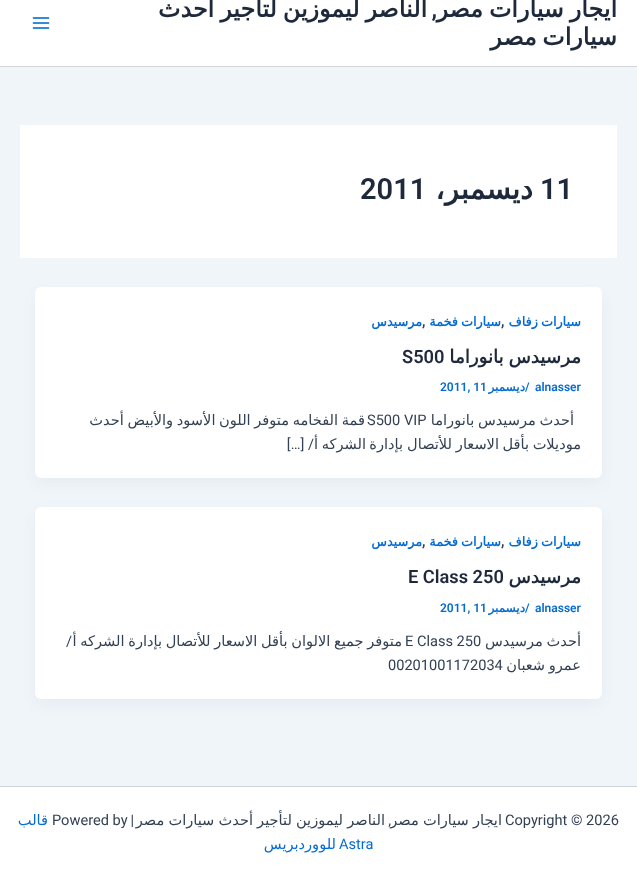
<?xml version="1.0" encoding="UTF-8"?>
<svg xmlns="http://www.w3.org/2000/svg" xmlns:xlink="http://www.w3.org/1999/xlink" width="637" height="872">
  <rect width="100%" height="100%" fill="#f0f5fa" />
  <rect width="637" height="66" fill="#ffffff" />
  <rect y="66" width="637" height="1" fill="#d1d5db" />
  <image x="32" y="17" width="18" height="12" xlink:href="image1.png" />
  <rect x="20" y="125" width="597" height="133" fill="#ffffff" />
  <rect x="37" y="295" width="563" height="187" rx="4" fill="#101828" fill-opacity="0.05" filter="blur(7.5px)" />
  <rect x="35" y="287" width="567" height="191" rx="6" fill="#ffffff" />
  <rect x="37" y="515" width="563" height="188" rx="4" fill="#101828" fill-opacity="0.05" filter="blur(7.5px)" />
  <rect x="35" y="507" width="567" height="192" rx="6" fill="#ffffff" />
  <rect y="787" width="637" height="85" fill="#ffffff" />
  <rect y="786" width="637" height="1" fill="#d1d5db" />
  <text x="437" y="17" style="font-family: Roboto; font-size: 23.75px; font-weight: 600; direction: rtl; fill: #1e293b">,</text>
  <text x="617" y="17" word-spacing="-1.5" style="font-family: DejaVu Sans; font-size: 23.75px; font-weight: bold; direction: rtl; fill: #1e293b">ايجار سيارات مصر</text>
  <text x="427" y="17" word-spacing="-1.5" style="font-family: DejaVu Sans; font-size: 23.75px; font-weight: bold; direction: rtl; fill: #1e293b">الناصر ليموزين لتأجير أحدث</text>
  <text x="617" y="45" word-spacing="-2" style="font-family: DejaVu Sans; font-size: 23.75px; font-weight: bold; direction: rtl; fill: #1e293b">سيارات مصر</text>
  <text x="540" y="199" style="font-family: Roboto; font-size: 29px; font-weight: 600; fill: #1e293b">11</text>
  <text x="533" y="199" style="font-family: DejaVu Sans; font-size: 29px; font-weight: bold; direction: rtl; fill: #1e293b">ديسمبر،</text>
  <text x="360" y="199" style="font-family: Roboto; font-size: 29px; font-weight: 600; fill: #1e293b">2011</text>
  <text x="581" y="326" word-spacing="-1" style="font-family: DejaVu Sans; font-size: 12.75px; font-weight: bold; direction: rtl; fill: #046bd2">سيارات زفاف</text>
  <text x="501" y="326" style="font-family: Roboto; font-size: 14.6px; font-weight: 600; fill: #334155">,</text>
  <text x="501" y="326" word-spacing="-1" style="font-family: DejaVu Sans; font-size: 12.75px; font-weight: bold; direction: rtl; fill: #046bd2">سيارات فخمة</text>
  <text x="422" y="326" style="font-family: Roboto; font-size: 14.6px; font-weight: 600; fill: #334155">,</text>
  <text x="422" y="326" style="font-family: DejaVu Sans; font-size: 12.75px; font-weight: bold; direction: rtl; fill: #046bd2">مرسيدس</text>
  <text x="581" y="363" word-spacing="-1" style="font-family: DejaVu Sans; font-size: 18.25px; font-weight: bold; direction: rtl; fill: #1e293b">مرسيدس بانوراما</text>
  <text x="402" y="363" style="font-family: Roboto; font-size: 18.25px; font-weight: 600; fill: #1e293b">S500</text>
  <text x="535" y="391" style="font-family: Roboto; font-size: 12px; font-weight: 600; fill: #046bd2">alnasser</text>
  <text x="525" y="391" style="font-family: Roboto; font-size: 12px; font-weight: 600; fill: #046bd2">/</text>
  <text x="525" y="391" style="font-family: DejaVu Sans; font-size: 12px; font-weight: bold; direction: rtl; fill: #046bd2">ديسمبر</text>
  <text x="440" y="391" style="font-family: Roboto; font-size: 12px; font-weight: 600; fill: #046bd2">2011, 11</text>
  <text x="574" y="425" word-spacing="-1" style="font-family: DejaVu Sans; font-size: 14.6px; direction: rtl; fill: #334155">أحدث مرسيدس بانوراما</text>
  <text x="365" y="425" word-spacing="-1" style="font-family: DejaVu Sans; font-size: 14.6px; direction: rtl; fill: #334155">قمة الفخامه متوفر اللون الأسود والأبيض أحدث</text>
  <text x="367" y="425" style="font-family: Roboto; font-size: 14.6px; fill: #334155">S500 VIP</text>
  <text x="581" y="449" style="font-family: DejaVu Sans; font-size: 14.6px; direction: rtl; fill: #334155">موديلات</text>
  <text x="529" y="449" style="font-family: DejaVu Sans; font-size: 14.6px; direction: rtl; fill: #334155">بأقل</text>
  <text x="499" y="449" style="font-family: DejaVu Sans; font-size: 14.6px; direction: rtl; fill: #334155">الاسعار</text>
  <text x="452" y="449" style="font-family: DejaVu Sans; font-size: 14.6px; direction: rtl; fill: #334155">للأتصال</text>
  <text x="403" y="449" style="font-family: DejaVu Sans; font-size: 14.6px; direction: rtl; fill: #334155">بإدارة</text>
  <text x="366" y="449" style="font-family: DejaVu Sans; font-size: 14.6px; direction: rtl; fill: #334155">الشركه</text>
  <text x="318" y="449" style="font-family: DejaVu Sans; font-size: 14.6px; direction: rtl; fill: #334155">أ</text>
  <text x="314" y="449" style="font-family: Roboto; font-size: 14.6px; direction: rtl; fill: #334155">/ […]</text>
  <text x="581" y="546" word-spacing="-1" style="font-family: DejaVu Sans; font-size: 12.75px; font-weight: bold; direction: rtl; fill: #046bd2">سيارات زفاف</text>
  <text x="501" y="546" style="font-family: Roboto; font-size: 14.6px; font-weight: 600; fill: #334155">,</text>
  <text x="501" y="546" word-spacing="-1" style="font-family: DejaVu Sans; font-size: 12.75px; font-weight: bold; direction: rtl; fill: #046bd2">سيارات فخمة</text>
  <text x="422" y="546" style="font-family: Roboto; font-size: 14.6px; font-weight: 600; fill: #334155">,</text>
  <text x="422" y="546" style="font-family: DejaVu Sans; font-size: 12.75px; font-weight: bold; direction: rtl; fill: #046bd2">مرسيدس</text>
  <text x="581" y="583" style="font-family: DejaVu Sans; font-size: 18.25px; font-weight: bold; direction: rtl; fill: #1e293b">مرسيدس</text>
  <text x="408" y="583" style="font-family: Roboto; font-size: 18.25px; font-weight: 600; fill: #1e293b">E Class 250</text>
  <text x="535" y="612" style="font-family: Roboto; font-size: 12px; font-weight: 600; fill: #046bd2">alnasser</text>
  <text x="525" y="612" style="font-family: Roboto; font-size: 12px; font-weight: 600; fill: #046bd2">/</text>
  <text x="525" y="612" style="font-family: DejaVu Sans; font-size: 12px; font-weight: bold; direction: rtl; fill: #046bd2">ديسمبر</text>
  <text x="440" y="612" style="font-family: Roboto; font-size: 12px; font-weight: 600; fill: #046bd2">2011, 11</text>
  <text x="581" y="646" word-spacing="-1" style="font-family: DejaVu Sans; font-size: 14.6px; direction: rtl; fill: #334155">أحدث مرسيدس</text>
  <text x="402" y="646" word-spacing="-1" style="font-family: DejaVu Sans; font-size: 14.6px; direction: rtl; fill: #334155">متوفر جميع الالوان بأقل الاسعار للأتصال بإدارة الشركه أ</text>
  <text x="405" y="646" style="font-family: Roboto; font-size: 14.6px; fill: #334155">E Class 250</text>
  <text x="72" y="646" style="font-family: Roboto; font-size: 14.6px; direction: rtl; fill: #334155">/</text>
  <text x="581" y="670" word-spacing="-1" style="font-family: DejaVu Sans; font-size: 14.6px; direction: rtl; fill: #334155">عمرو شعبان</text>
  <text x="388" y="670" style="font-family: Roboto; font-size: 14.6px; fill: #334155">00201001172034</text>
  <text x="505" y="825" style="font-family: Roboto; font-size: 14.6px; fill: #334155">Copyright © 2026</text>
  <text x="391" y="825" style="font-family: Roboto; font-size: 14.6px; direction: rtl; fill: #334155">,</text>
  <text x="502" y="825" word-spacing="-0.5" style="font-family: DejaVu Sans; font-size: 14.6px; direction: rtl; fill: #334155">ايجار سيارات مصر</text>
  <text x="385" y="825" word-spacing="-0.5" style="font-family: DejaVu Sans; font-size: 14.6px; direction: rtl; fill: #334155">الناصر ليموزين لتأجير أحدث سيارات مصر</text>
  <text x="134" y="825" style="font-family: Roboto; font-size: 14.6px; direction: rtl; fill: #334155">|</text>
  <text x="52" y="825" style="font-family: Roboto; font-size: 14.6px; fill: #334155">Powered by</text>
  <text x="48" y="825" style="font-family: DejaVu Sans; font-size: 14.6px; direction: rtl; fill: #046bd2">قالب</text>
  <text x="339" y="849" style="font-family: Roboto; font-size: 14.6px; fill: #046bd2">Astra</text>
  <text x="336" y="849" style="font-family: DejaVu Sans; font-size: 14.6px; direction: rtl; fill: #046bd2">للووردبريس</text>
</svg>
